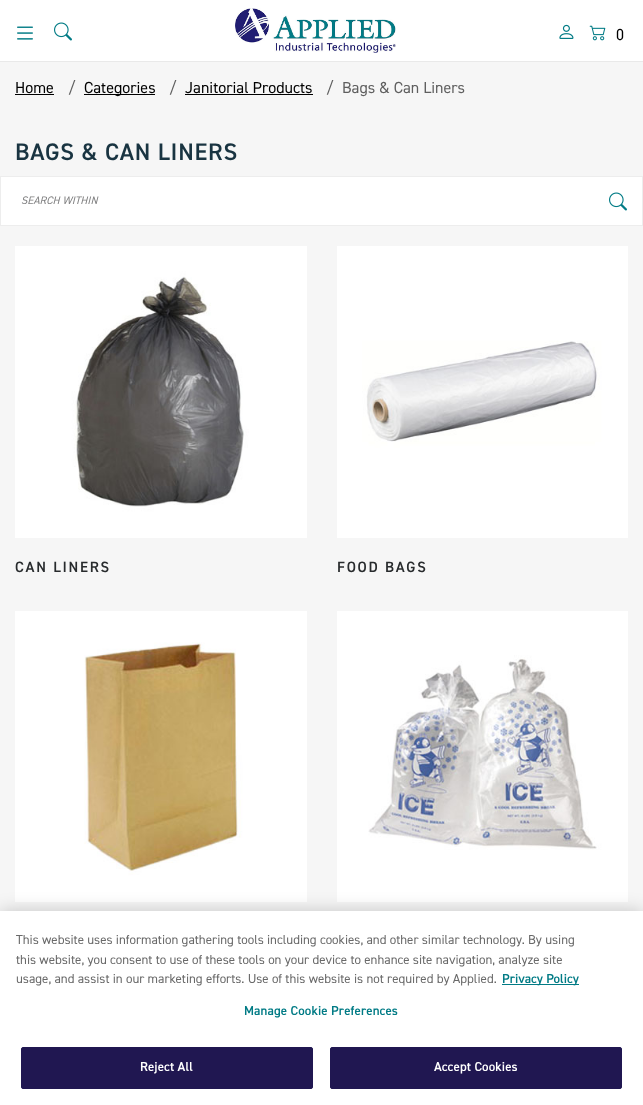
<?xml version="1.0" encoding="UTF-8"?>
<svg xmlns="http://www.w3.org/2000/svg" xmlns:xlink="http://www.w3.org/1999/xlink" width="643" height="1105">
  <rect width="100%" height="100%" fill="#f6f6f6" />
  <rect width="643" height="61" fill="#ffffff" />
  <rect y="61" width="643" height="1" fill="#e9e9e9" />
  <image x="17" y="26" width="16" height="14" xlink:href="image1.png" />
  <image x="54" y="22" width="18" height="19" xlink:href="image2.png" />
  <image x="235" y="8" width="161" height="45" xlink:href="image3.png" />
  <image x="559" y="24" width="15" height="15" xlink:href="image4.png" />
  <image x="589" y="25" width="17" height="16" xlink:href="image5.png" />
  <rect x="15" y="94" width="39" height="1" fill="#000000" />
  <rect x="84" y="94" width="71" height="1" fill="#000000" />
  <rect x="185" y="94" width="128" height="1" fill="#000000" />
  <rect x="0.5" y="176.5" width="642" height="49" fill="#ffffff" stroke="#ededed" />
  <image x="609" y="192" width="18" height="19" xlink:href="image2.png" />
  <image x="15" y="246" width="292" height="292" xlink:href="image6.png" />
  <image x="337" y="246" width="291" height="292" xlink:href="image7.png" />
  <image x="15" y="611" width="292" height="291" xlink:href="image8.png" />
  <image x="337" y="611" width="291" height="291" xlink:href="image9.png" />
  <rect y="911" width="643" height="194" fill="#000000" fill-opacity="0.2" filter="blur(9px)" />
  <rect y="911" width="643" height="194" fill="#ffffff" />
  <rect x="502" y="984" width="77" height="1" fill="#017b85" />
  <rect x="21.5" y="1047.5" width="291" height="41" rx="1.5" fill="#201751" stroke="#201751" />
  <rect x="330.5" y="1047.5" width="291" height="41" rx="1.5" fill="#201751" stroke="#201751" />
  <text x="616" y="40" style="font-family: 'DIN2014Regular'; font-size: 16px; fill: #000000">0</text>
  <text x="15" y="93" style="font-family: 'DIN2014Regular'; font-size: 16px; fill: #000000">Home</text>
  <text x="68" y="93" style="font-family: 'DIN2014Regular'; font-size: 16px; fill: #5f5f5f">/</text>
  <text x="84" y="93" style="font-family: 'DIN2014Regular'; font-size: 16px; fill: #000000">Categories</text>
  <text x="169" y="93" style="font-family: 'DIN2014Regular'; font-size: 16px; fill: #5f5f5f">/</text>
  <text x="185" y="93" style="font-family: 'DIN2014Regular'; font-size: 16px; fill: #000000">Janitorial Products</text>
  <text x="326" y="93" style="font-family: 'DIN2014Regular'; font-size: 16px; fill: #5f5f5f">/</text>
  <text x="342" y="93" style="font-family: 'DIN2014Regular'; font-size: 16px; fill: #5f5f5f">Bags &amp; Can Liners</text>
  <text x="15" y="160" style="font-family: 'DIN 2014'; font-size: 24px; font-weight: 600; letter-spacing: 0.75px; fill: #193441">BAGS &amp; CAN LINERS</text>
  <text x="21" y="204" style="font-family: 'DIN2014Regular'; font-size: 11px; font-style: italic; fill: #818182">SEARCH WITHIN</text>
  <text x="15" y="572" style="font-family: 'DIN 2014'; font-size: 15px; font-weight: 600; letter-spacing: 1.75px; fill: #282b2d">CAN LINERS</text>
  <text x="337" y="572" style="font-family: 'DIN 2014'; font-size: 15px; font-weight: 600; letter-spacing: 1.75px; fill: #282b2d">FOOD BAGS</text>
  <text x="16" y="944" style="font-family: 'DIN2014Regular'; font-size: 13px; fill: #696969">This website uses information gathering tools including cookies, and other similar technology. By using</text>
  <text x="16" y="964" style="font-family: 'DIN2014Regular'; font-size: 13px; fill: #696969">this website, you consent to use of these tools on your device to enhance site navigation, analyze site</text>
  <text x="16" y="983" style="font-family: 'DIN2014Regular'; font-size: 13px; fill: #696969">usage, and assist in our marketing efforts. Use of this website is not required by Applied.</text>
  <text x="502" y="983" style="font-family: 'DIN 2014'; font-size: 13px; font-weight: 600; fill: #017b85">Privacy Policy</text>
  <text x="244" y="1015" style="font-family: 'DIN 2014'; font-size: 13px; font-weight: 600; letter-spacing: 0.1px; fill: #017b85">Manage Cookie Preferences</text>
  <text x="140" y="1071" style="font-family: 'DIN 2014'; font-size: 13px; font-weight: 600; letter-spacing: 0.1px; fill: #ffffff">Reject All</text>
  <text x="434" y="1071" style="font-family: 'DIN 2014'; font-size: 13px; font-weight: 600; letter-spacing: 0.1px; fill: #ffffff">Accept Cookies</text>
</svg>
